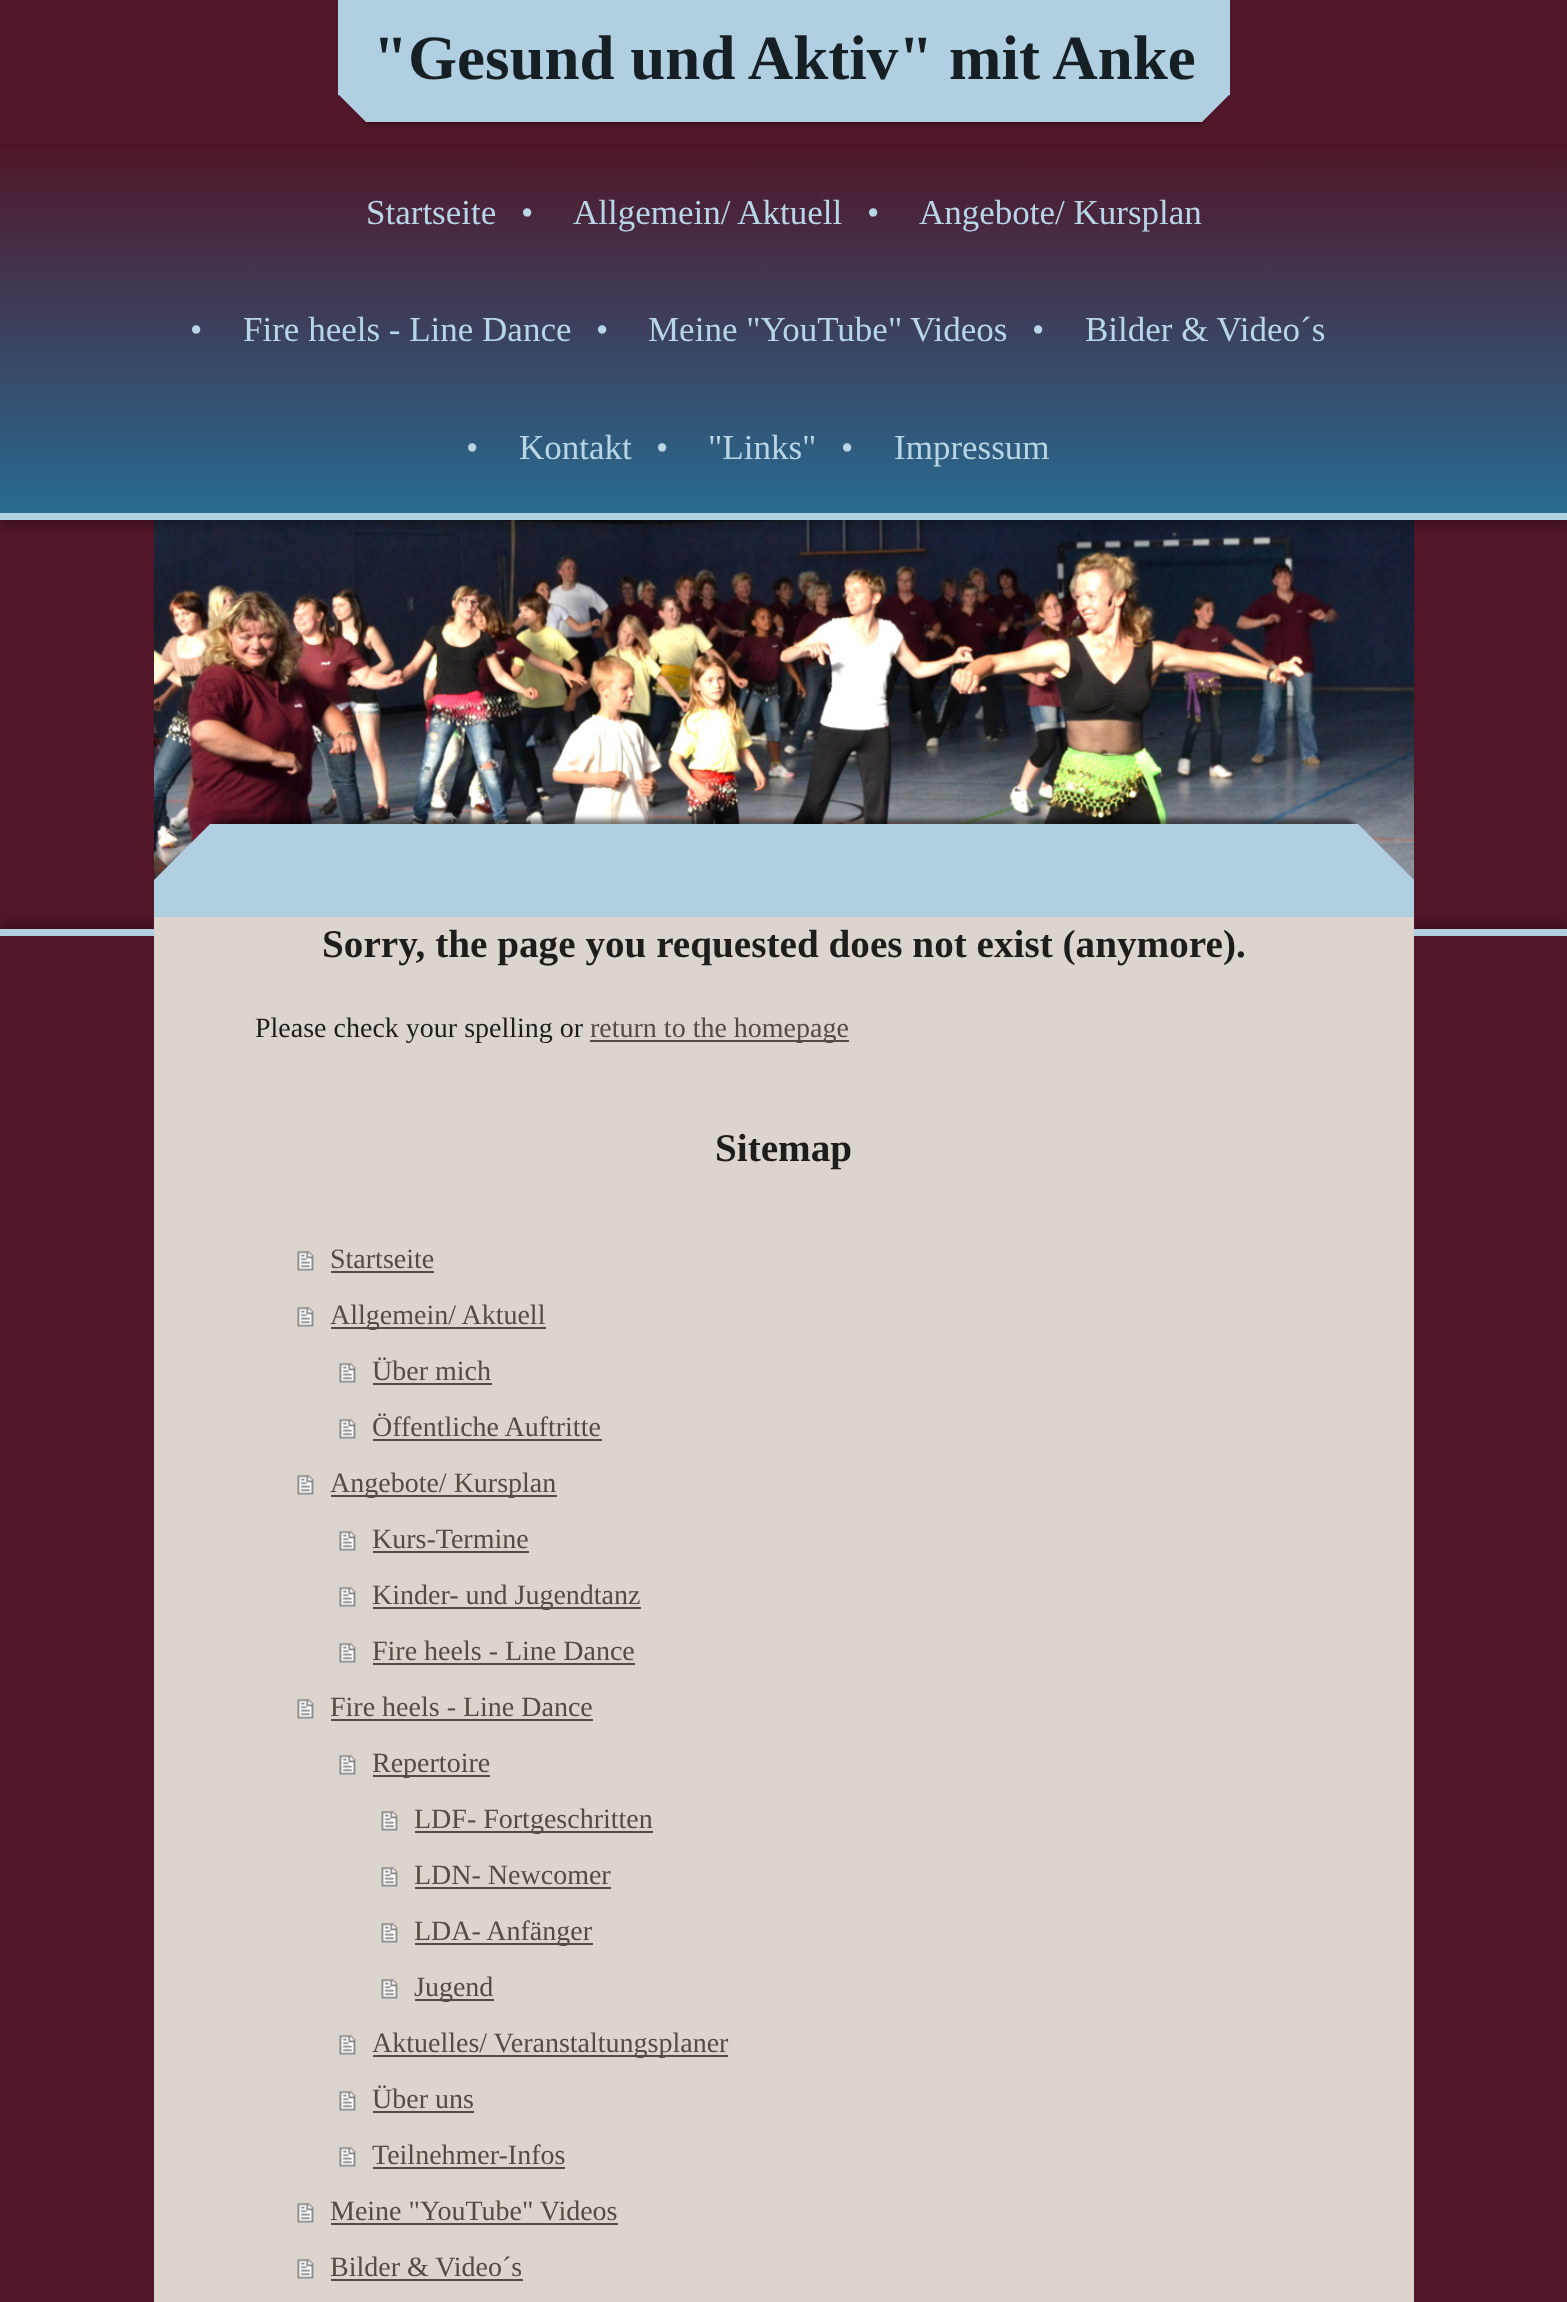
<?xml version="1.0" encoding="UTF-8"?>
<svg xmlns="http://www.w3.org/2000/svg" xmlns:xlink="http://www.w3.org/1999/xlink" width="1567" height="2302">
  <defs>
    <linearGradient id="g1" gradientUnits="userSpaceOnUse" x1="784" y1="143" x2="784" y2="513"><stop offset="0" stop-color="#501628" /><stop offset="1" stop-color="#286b91" /></linearGradient>
    <clipPath id="clip1"><rect x="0" y="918" width="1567" height="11" /></clipPath>
  </defs>
  <rect width="100%" height="100%" fill="#511628" />
  <rect x="366" y="95" width="836" height="28" fill="#000000" fill-opacity="0.5" filter="blur(2px)" />
  <path d="M 338 94 h 892 l -28 28 h -836 z" fill="#b0d0e2" />
  <rect x="338" width="892" height="95" fill="#b0d0e2" />
  <image x="154" y="520" width="1260" height="360" xlink:href="image1.png" />
  <rect y="151" width="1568" height="376" fill="#000000" fill-opacity="0.2" filter="blur(3.5px)" />
  <rect y="148" width="1567" height="365" fill="url(#g1)" />
  <rect y="513" width="1567" height="7" fill="#b0d0e2" />
  <g clip-path="url(#clip1)">
    <rect y="922" width="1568" height="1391" fill="#000000" fill-opacity="0.2" filter="blur(3.5px)" />
  </g>
  <rect y="929" width="1567" height="7" fill="#b0d0e2" />
  <rect x="154" y="917" width="1260" height="1385" fill="#dcd5ce" />
  <rect x="210" y="819" width="1148" height="28" rx="14" fill="#000000" fill-opacity="0.5" filter="blur(2.5px)" />
  <path d="M 1414 880 h -1260 l 56 -56 h 1148 z" fill="#b0d0e2" />
  <rect x="154" y="880" width="1260" height="37" fill="#b0d0e2" />
  <rect x="590" y="1040" width="259" height="2" fill="#554b42" />
  <image x="297" y="1250" width="17" height="21" xlink:href="image2.png" />
  <rect x="331" y="1271" width="103" height="2" fill="#554b42" />
  <image x="297" y="1306" width="17" height="21" xlink:href="image2.png" />
  <rect x="331" y="1327" width="215" height="2" fill="#554b42" />
  <image x="339" y="1362" width="17" height="21" xlink:href="image3.png" />
  <rect x="373" y="1383" width="119" height="2" fill="#554b42" />
  <image x="339" y="1418" width="17" height="21" xlink:href="image3.png" />
  <rect x="373" y="1439" width="229" height="2" fill="#554b42" />
  <image x="297" y="1474" width="17" height="21" xlink:href="image2.png" />
  <rect x="331" y="1495" width="226" height="2" fill="#554b42" />
  <image x="339" y="1530" width="17" height="21" xlink:href="image3.png" />
  <rect x="373" y="1551" width="156" height="2" fill="#554b42" />
  <image x="339" y="1586" width="17" height="21" xlink:href="image3.png" />
  <rect x="373" y="1607" width="268" height="2" fill="#554b42" />
  <image x="339" y="1642" width="17" height="21" xlink:href="image3.png" />
  <rect x="373" y="1663" width="262" height="2" fill="#554b42" />
  <image x="297" y="1698" width="17" height="21" xlink:href="image2.png" />
  <rect x="331" y="1719" width="262" height="2" fill="#554b42" />
  <image x="339" y="1754" width="17" height="21" xlink:href="image3.png" />
  <rect x="373" y="1775" width="117" height="2" fill="#554b42" />
  <image x="381" y="1810" width="17" height="21" xlink:href="image4.png" />
  <rect x="415" y="1831" width="238" height="2" fill="#554b42" />
  <image x="381" y="1866" width="17" height="21" xlink:href="image4.png" />
  <rect x="415" y="1887" width="196" height="2" fill="#554b42" />
  <image x="381" y="1922" width="17" height="21" xlink:href="image4.png" />
  <rect x="415" y="1943" width="178" height="2" fill="#554b42" />
  <image x="381" y="1978" width="17" height="21" xlink:href="image4.png" />
  <rect x="415" y="1999" width="79" height="2" fill="#554b42" />
  <image x="339" y="2034" width="17" height="21" xlink:href="image3.png" />
  <rect x="373" y="2055" width="355" height="2" fill="#554b42" />
  <image x="339" y="2090" width="17" height="21" xlink:href="image3.png" />
  <rect x="373" y="2111" width="101" height="2" fill="#554b42" />
  <image x="339" y="2146" width="17" height="21" xlink:href="image3.png" />
  <rect x="373" y="2167" width="192" height="2" fill="#554b42" />
  <image x="297" y="2202" width="17" height="21" xlink:href="image2.png" />
  <rect x="331" y="2223" width="287" height="2" fill="#554b42" />
  <image x="297" y="2258" width="17" height="21" xlink:href="image2.png" />
  <rect x="331" y="2279" width="192" height="2" fill="#554b42" />
  <text x="373" y="79" style="font-family: Liberation Serif; font-size: 63px; font-weight: bold; fill: #161f23">"Gesund und Aktiv" mit Anke</text>
  <text x="366" y="224" style="font-family: Liberation Serif; font-size: 35px; fill: #b8d6e6">Startseite</text>
  <text x="521" y="224" style="font-family: Liberation Serif; font-size: 35px; fill: #b8d6e6">•</text>
  <text x="573" y="224" style="font-family: Liberation Serif; font-size: 35px; fill: #b8d6e6">Allgemein/ Aktuell</text>
  <text x="867" y="224" style="font-family: Liberation Serif; font-size: 35px; fill: #b8d6e6">•</text>
  <text x="919" y="224" style="font-family: Liberation Serif; font-size: 35px; fill: #b8d6e6">Angebote/ Kursplan</text>
  <text x="190" y="341" style="font-family: Liberation Serif; font-size: 35px; fill: #b8d6e6">•</text>
  <text x="243" y="341" style="font-family: Liberation Serif; font-size: 35px; fill: #b8d6e6">Fire heels - Line Dance</text>
  <text x="596" y="341" style="font-family: Liberation Serif; font-size: 35px; fill: #b8d6e6">•</text>
  <text x="648" y="341" style="font-family: Liberation Serif; font-size: 35px; fill: #b8d6e6">Meine "YouTube" Videos</text>
  <text x="1032" y="341" style="font-family: Liberation Serif; font-size: 35px; fill: #b8d6e6">•</text>
  <text x="1085" y="341" style="font-family: Liberation Serif; font-size: 35px; fill: #b8d6e6">Bilder &amp; Video´s</text>
  <text x="466" y="459" style="font-family: Liberation Serif; font-size: 35px; fill: #b8d6e6">•</text>
  <text x="519" y="459" style="font-family: Liberation Serif; font-size: 35px; fill: #b8d6e6">Kontakt</text>
  <text x="656" y="459" style="font-family: Liberation Serif; font-size: 35px; fill: #b8d6e6">•</text>
  <text x="708" y="459" style="font-family: Liberation Serif; font-size: 35px; fill: #b8d6e6">"Links"</text>
  <text x="841" y="459" style="font-family: Liberation Serif; font-size: 35px; fill: #b8d6e6">•</text>
  <text x="894" y="459" style="font-family: Liberation Serif; font-size: 35px; fill: #b8d6e6">Impressum</text>
  <text x="322" y="957" style="font-family: Liberation Serif; font-size: 39.2px; font-weight: bold; fill: #1f1d1b">Sorry, the page you requested does not exist (anymore).</text>
  <text x="255" y="1037" style="font-family: Liberation Serif; font-size: 28px; fill: #1f1d1b">Please check your spelling or</text>
  <text x="590" y="1037" style="font-family: Liberation Serif; font-size: 28px; fill: #554b42">return to the homepage</text>
  <text x="715" y="1161" style="font-family: Liberation Serif; font-size: 39.2px; font-weight: bold; fill: #1f1d1b">Sitemap</text>
  <text x="330" y="1268" style="font-family: Liberation Serif; font-size: 28px; fill: #554b42">Startseite</text>
  <text x="330" y="1324" style="font-family: Liberation Serif; font-size: 28px; fill: #554b42">Allgemein/ Aktuell</text>
  <text x="372" y="1380" style="font-family: Liberation Serif; font-size: 28px; fill: #554b42">Über mich</text>
  <text x="372" y="1436" style="font-family: Liberation Serif; font-size: 28px; fill: #554b42">Öffentliche Auftritte</text>
  <text x="330" y="1492" style="font-family: Liberation Serif; font-size: 28px; fill: #554b42">Angebote/ Kursplan</text>
  <text x="372" y="1548" style="font-family: Liberation Serif; font-size: 28px; fill: #554b42">Kurs-Termine</text>
  <text x="372" y="1604" style="font-family: Liberation Serif; font-size: 28px; fill: #554b42">Kinder- und Jugendtanz</text>
  <text x="372" y="1660" style="font-family: Liberation Serif; font-size: 28px; fill: #554b42">Fire heels - Line Dance</text>
  <text x="330" y="1716" style="font-family: Liberation Serif; font-size: 28px; fill: #554b42">Fire heels - Line Dance</text>
  <text x="372" y="1772" style="font-family: Liberation Serif; font-size: 28px; fill: #554b42">Repertoire</text>
  <text x="414" y="1828" style="font-family: Liberation Serif; font-size: 28px; fill: #554b42">LDF- Fortgeschritten</text>
  <text x="414" y="1884" style="font-family: Liberation Serif; font-size: 28px; fill: #554b42">LDN- Newcomer</text>
  <text x="414" y="1940" style="font-family: Liberation Serif; font-size: 28px; fill: #554b42">LDA- Anfänger</text>
  <text x="414" y="1996" style="font-family: Liberation Serif; font-size: 28px; fill: #554b42">Jugend</text>
  <text x="372" y="2052" style="font-family: Liberation Serif; font-size: 28px; fill: #554b42">Aktuelles/ Veranstaltungsplaner</text>
  <text x="372" y="2108" style="font-family: Liberation Serif; font-size: 28px; fill: #554b42">Über uns</text>
  <text x="372" y="2164" style="font-family: Liberation Serif; font-size: 28px; fill: #554b42">Teilnehmer-Infos</text>
  <text x="330" y="2220" style="font-family: Liberation Serif; font-size: 28px; fill: #554b42">Meine "YouTube" Videos</text>
  <text x="330" y="2276" style="font-family: Liberation Serif; font-size: 28px; fill: #554b42">Bilder &amp; Video´s</text>
</svg>
